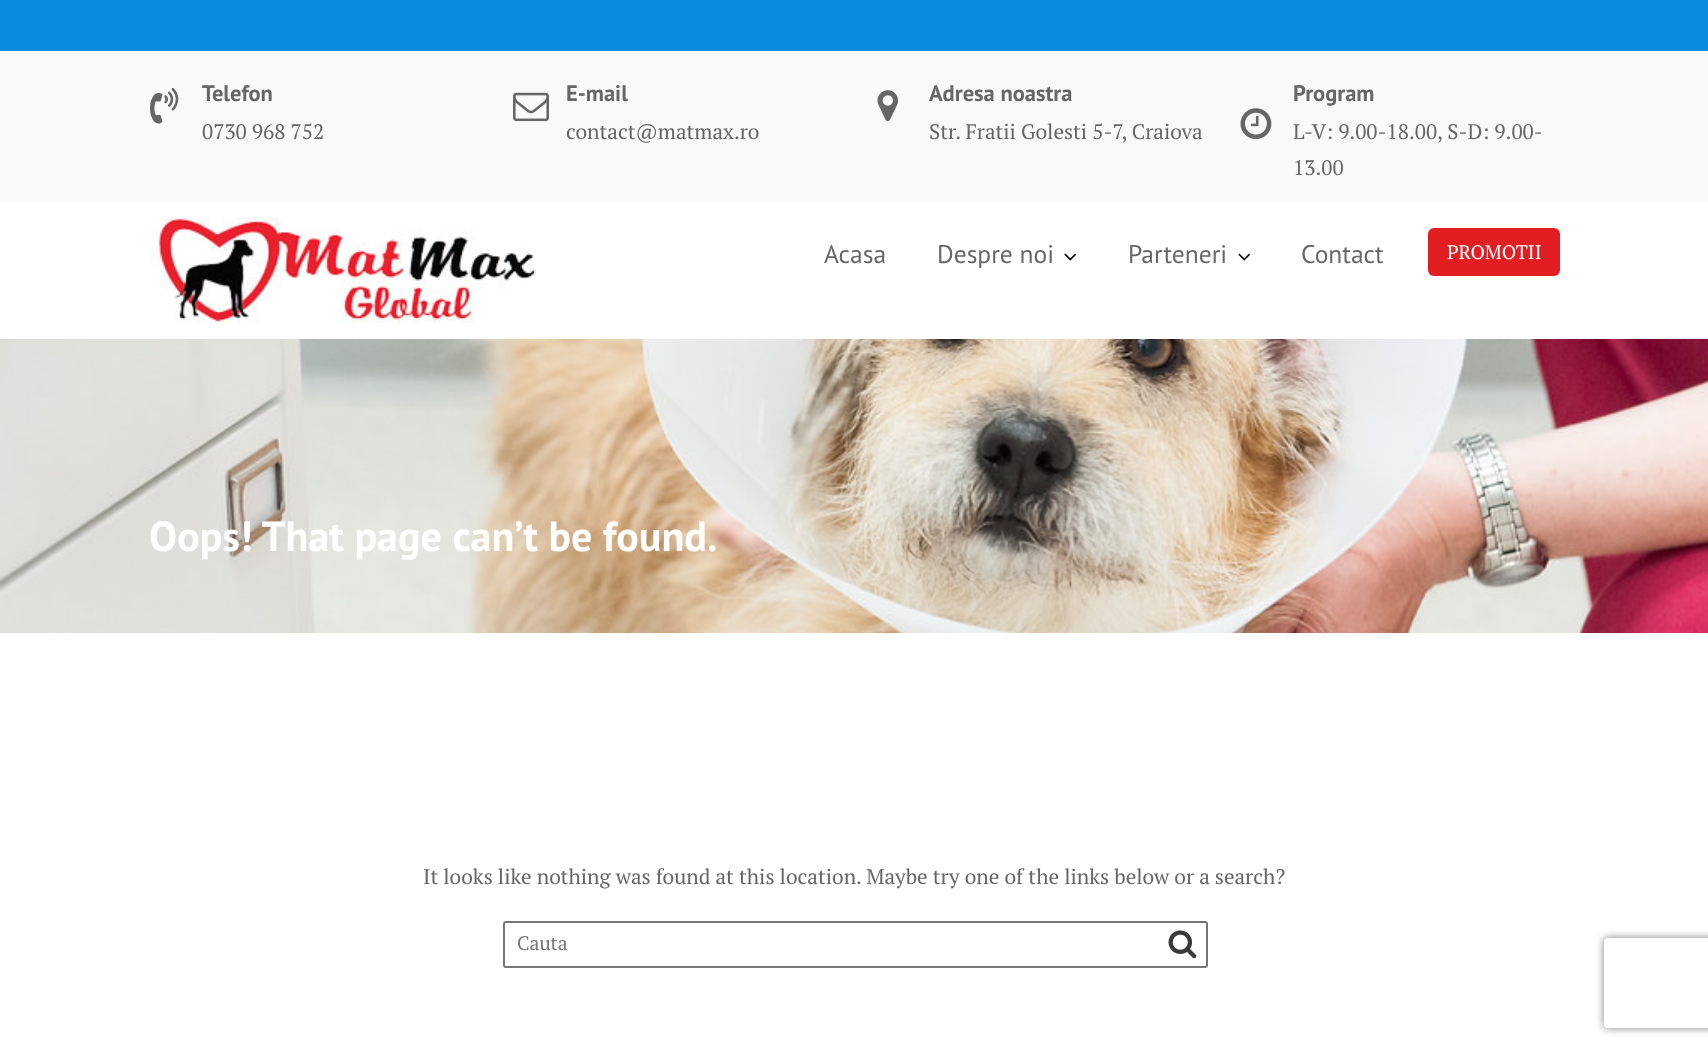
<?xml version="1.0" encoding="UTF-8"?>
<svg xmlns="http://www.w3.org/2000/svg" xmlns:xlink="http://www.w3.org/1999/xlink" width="1708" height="1048">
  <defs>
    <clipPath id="clip1"><path d="M 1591 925 h 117 v 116 h -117 z m 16 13 h 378 c 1.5 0 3 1.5 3 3 v 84 c 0 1.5 -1.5 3 -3 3 h -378 c -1.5 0 -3 -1.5 -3 -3 v -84 c 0 -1.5 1.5 -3 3 -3 z" clip-rule="evenodd" /></clipPath>
    <clipPath id="clip2"><rect x="518" y="930" width="652" height="27" /></clipPath>
  </defs>
  <rect width="100%" height="100%" fill="#ffffff" />
  <rect width="1708" height="51" fill="#088edd" />
  <rect y="51" width="1708" height="150" fill="#f9f9f9" />
  <image x="150" y="88" width="29" height="36" xlink:href="image1.png" />
  <image x="513" y="92" width="36" height="30" xlink:href="image2.png" />
  <image x="877" y="90" width="22" height="32" xlink:href="image3.png" />
  <image x="1240" y="108" width="32" height="32" xlink:href="image4.png" />
  <image x="150" y="217" width="386" height="106" xlink:href="image5.png" />
  <image x="1064" y="253" width="13" height="8" xlink:href="image6.png" />
  <image x="1238" y="253" width="13" height="8" xlink:href="image6.png" />
  <rect x="1428" y="228" width="132" height="48" rx="6" fill="#e21e22" />
  <image x="0" y="339" width="1708" height="294" xlink:href="image7.png" />
  <rect x="504" y="922" width="703" height="45" rx="2" fill="none" stroke="#767676" stroke-width="2" />
  <image x="1168" y="930" width="29" height="29" xlink:href="image8.png" />
  <g clip-path="url(#clip1)">
    <rect x="1604" y="938" width="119" height="90" rx="3" fill="#808080" filter="blur(4px)" />
  </g>
  <text x="202" y="101" style="font-family: PT Sans; font-size: 22.5px; font-weight: bold; fill: #666666">Telefon</text>
  <text x="202" y="139" style="font-family: PT Serif; font-size: 21px; fill: #666666">0730 968 752</text>
  <text x="566" y="101" style="font-family: PT Sans; font-size: 22.5px; font-weight: bold; fill: #666666">E-mail</text>
  <text x="566" y="139" style="font-family: PT Serif; font-size: 21px; fill: #666666">contact@matmax.ro</text>
  <text x="929" y="101" style="font-family: PT Sans; font-size: 22.5px; font-weight: bold; fill: #666666">Adresa noastra</text>
  <text x="929" y="139" style="font-family: PT Serif; font-size: 21px; fill: #666666">Str. Fratii Golesti 5-7, Craiova</text>
  <text x="1293" y="101" style="font-family: PT Sans; font-size: 22.5px; font-weight: bold; fill: #666666">Program</text>
  <text x="1293" y="139" style="font-family: PT Serif; font-size: 21px; fill: #666666">L-V: 9.00-18.00, S-D: 9.00-</text>
  <text x="1293" y="175" style="font-family: PT Serif; font-size: 21px; fill: #666666">13.00</text>
  <text x="824" y="263" style="font-family: PT Sans; font-size: 25.5px; fill: #666666">Acasa</text>
  <text x="937" y="263" style="font-family: PT Sans; font-size: 25.5px; fill: #666666">Despre noi</text>
  <text x="1128" y="263" style="font-family: PT Sans; font-size: 25.5px; fill: #666666">Parteneri</text>
  <text x="1301" y="263" style="font-family: PT Sans; font-size: 25.5px; fill: #666666">Contact</text>
  <text x="1447" y="259" style="font-family: PT Serif; font-size: 19.5px; fill: #ffffff">PROMOTII</text>
  <text x="149" y="551" style="font-family: PT Sans; font-size: 42px; font-weight: bold; fill: #ffffff">Oops! That page can’t be found.</text>
  <text x="423" y="884" style="font-family: PT Serif; font-size: 21px; fill: #666666">It looks like nothing was found at this location. Maybe try one of the links below or a search?</text>
  <g clip-path="url(#clip2)">
    <text x="517" y="950" style="font-family: PT Serif; font-size: 19.5px; fill: #757575">Cauta</text>
  </g>
</svg>
